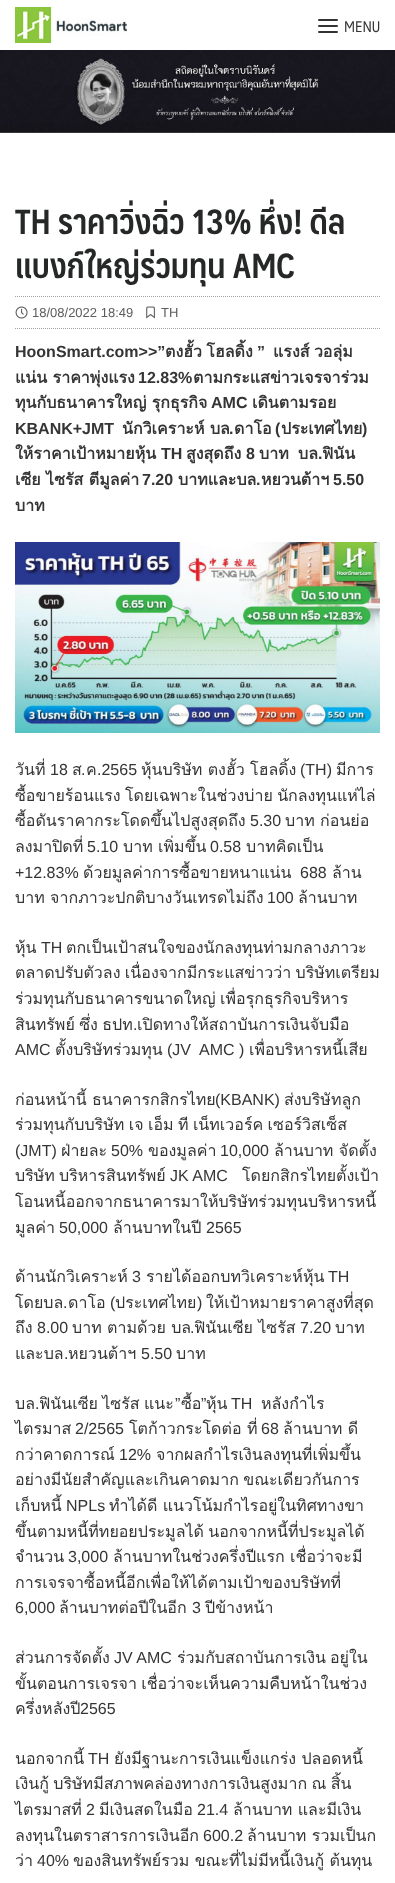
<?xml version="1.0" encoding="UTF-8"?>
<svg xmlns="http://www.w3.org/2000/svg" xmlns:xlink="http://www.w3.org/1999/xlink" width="395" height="1883">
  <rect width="100%" height="100%" fill="#ffffff" />
  <image x="15" y="7" width="112" height="36" xlink:href="image1.png" />
  <rect x="318" y="19" width="20" height="2" rx="1" fill="#333333" />
  <rect x="318" y="25" width="20" height="2" rx="1" fill="#333333" />
  <rect x="318" y="31" width="20" height="2" rx="1" fill="#333333" />
  <path d="M 15 296.5 h 365" fill="none" stroke="#a4a4a4" stroke-dasharray="1 1" />
  <path d="M 15 328.5 h 365" fill="none" stroke="#a4a4a4" stroke-dasharray="1 1" />
  <image x="15" y="306" width="13" height="13" xlink:href="image2.png" />
  <image x="146" y="306" width="9" height="13" xlink:href="image3.png" />
  <image x="15" y="542" width="365" height="191" xlink:href="image4.png" />
  <image x="0" y="50" width="395" height="83" xlink:href="image5.png" />
  <text x="344" y="32" style="font-family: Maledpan; font-size: 15px; fill: #353535">MENU</text>
  <text x="15" y="234" style="font-family: Maledpan; font-size: 34px; font-weight: bold; fill: #262828">TH ราคาวิ่งฉิ่ว 13% หึ่ง! ดีล</text>
  <text x="15" y="278" style="font-family: Maledpan; font-size: 34px; font-weight: bold; fill: #262828">แบงก์ใหญ่ร่วมทุน AMC</text>
  <text x="32" y="317" style="font-family: Liberation Sans; font-size: 13px; fill: #5d5d5d">18/08/2022 18:49</text>
  <text x="161" y="317" style="font-family: Liberation Sans; font-size: 13px; fill: #5d5d5d">TH</text>
  <text x="15" y="357" style="font-family: Liberation Sans; font-size: 16px; font-weight: bold; fill: #353535">HoonSmart.com&gt;&gt;”</text>
  <text x="165" y="357" word-spacing="-1" style="font-family: Loma; font-size: 16px; font-weight: bold; fill: #353535">ตงฮั้ว โฮลดิ้ง</text>
  <text x="257" y="357" style="font-family: Liberation Sans; font-size: 16px; font-weight: bold; fill: #353535">”</text>
  <text x="273" y="357" word-spacing="-1" style="font-family: Loma; font-size: 16px; font-weight: bold; fill: #353535">แรงส์ วอลุ่ม</text>
  <text x="15" y="383" style="font-family: Loma; font-size: 16px; font-weight: bold; fill: #353535">แน่น ราคาพุ่งแรง</text>
  <text x="138" y="383" style="font-family: Liberation Sans; font-size: 16px; font-weight: bold; fill: #353535">12.83%</text>
  <text x="193" y="383" style="font-family: Loma; font-size: 16px; font-weight: bold; fill: #353535">ตามกระแสข่าวเจรจาร่วม</text>
  <text x="15" y="408" style="font-family: Loma; font-size: 16px; font-weight: bold; fill: #353535">ทุนกับธนาคารใหญ่ รุกธุรกิจ</text>
  <text x="211" y="408" style="font-family: Liberation Sans; font-size: 16px; font-weight: bold; fill: #353535">AMC</text>
  <text x="252" y="408" style="font-family: Loma; font-size: 16px; font-weight: bold; fill: #353535">เดินตามรอย</text>
  <text x="15" y="434" style="font-family: Liberation Sans; font-size: 16px; font-weight: bold; fill: #353535">KBANK+JMT</text>
  <text x="122" y="434" style="font-family: Loma; font-size: 16px; font-weight: bold; fill: #353535">นักวิเคราะห์ บล</text>
  <text x="229" y="434" style="font-family: Liberation Sans; font-size: 16px; font-weight: bold; fill: #353535">.</text>
  <text x="234" y="434" style="font-family: Loma; font-size: 16px; font-weight: bold; fill: #353535">ดาโอ</text>
  <text x="275" y="434" style="font-family: Liberation Sans; font-size: 16px; font-weight: bold; fill: #353535">(</text>
  <text x="281" y="434" style="font-family: Loma; font-size: 16px; font-weight: bold; fill: #353535">ประเทศไทย</text>
  <text x="362" y="434" style="font-family: Liberation Sans; font-size: 16px; font-weight: bold; fill: #353535">)</text>
  <text x="15" y="459" style="font-family: Loma; font-size: 16px; font-weight: bold; fill: #353535">ให้ราคาเป้าหมายหุ้น</text>
  <text x="161" y="459" style="font-family: Liberation Sans; font-size: 16px; font-weight: bold; fill: #353535">TH</text>
  <text x="186" y="459" style="font-family: Loma; font-size: 16px; font-weight: bold; fill: #353535">สูงสุดถึง</text>
  <text x="246" y="459" style="font-family: Liberation Sans; font-size: 16px; font-weight: bold; fill: #353535">8</text>
  <text x="259" y="459" style="font-family: Loma; font-size: 16px; font-weight: bold; fill: #353535">บาท</text>
  <text x="298" y="459" style="font-family: Loma; font-size: 16px; font-weight: bold; fill: #353535">บล</text>
  <text x="318" y="459" style="font-family: Liberation Sans; font-size: 16px; font-weight: bold; fill: #353535">.</text>
  <text x="322" y="459" style="font-family: Loma; font-size: 16px; font-weight: bold; fill: #353535">ฟินัน</text>
  <text x="15" y="485" style="font-family: Loma; font-size: 16px; font-weight: bold; fill: #353535">เซีย ไซรัส ตีมูลค่า</text>
  <text x="142" y="485" style="font-family: Liberation Sans; font-size: 16px; font-weight: bold; fill: #353535">7.20</text>
  <text x="178" y="485" style="font-family: Loma; font-size: 16px; font-weight: bold; fill: #353535">บาทและบล</text>
  <text x="256" y="485" style="font-family: Liberation Sans; font-size: 16px; font-weight: bold; fill: #353535">.</text>
  <text x="261" y="485" style="font-family: Loma; font-size: 16px; font-weight: bold; fill: #353535">หยวนต้าฯ</text>
  <text x="333" y="485" style="font-family: Liberation Sans; font-size: 16px; font-weight: bold; fill: #353535">5.50</text>
  <text x="15" y="511" style="font-family: Loma; font-size: 16px; font-weight: bold; fill: #353535">บาท</text>
  <text x="15" y="775" style="font-family: Loma; font-size: 16px; fill: #353535">วันที่</text>
  <text x="50" y="775" style="font-family: Liberation Sans; font-size: 16px; fill: #353535">18</text>
  <text x="72" y="775" style="font-family: Loma; font-size: 16px; fill: #353535">ส</text>
  <text x="81" y="775" style="font-family: Liberation Sans; font-size: 16px; fill: #353535">.</text>
  <text x="86" y="775" style="font-family: Loma; font-size: 16px; fill: #353535">ค</text>
  <text x="97" y="775" style="font-family: Liberation Sans; font-size: 16px; fill: #353535">.2565</text>
  <text x="141" y="775" style="font-family: Loma; font-size: 16px; fill: #353535">หุ้นบริษัท ตงฮั้ว โฮลดิ้ง</text>
  <text x="300" y="775" style="font-family: Liberation Sans; font-size: 16px; fill: #353535">(TH)</text>
  <text x="336" y="775" style="font-family: Loma; font-size: 16px; fill: #353535">มีการ</text>
  <text x="15" y="801" word-spacing="-1" style="font-family: Loma; font-size: 16px; fill: #353535">ซื้อขายร้อนแรง โดยเฉพาะในช่วงบ่าย นักลงทุนแห่ไล่</text>
  <text x="15" y="826" style="font-family: Loma; font-size: 16px; fill: #353535">ซื้อดันราคากระโดดขึ้นไปสูงสุดถึง</text>
  <text x="250" y="826" style="font-family: Liberation Sans; font-size: 16px; fill: #353535">5.30</text>
  <text x="285" y="826" style="font-family: Loma; font-size: 16px; fill: #353535">บาท ก่อนย่อ</text>
  <text x="15" y="852" style="font-family: Loma; font-size: 16px; fill: #353535">ลงมาปิดที่</text>
  <text x="87" y="852" style="font-family: Liberation Sans; font-size: 16px; fill: #353535">5.10</text>
  <text x="123" y="852" style="font-family: Loma; font-size: 16px; fill: #353535">บาท เพิ่มขึ้น</text>
  <text x="210" y="852" style="font-family: Liberation Sans; font-size: 16px; fill: #353535">0.58</text>
  <text x="246" y="852" style="font-family: Loma; font-size: 16px; fill: #353535">บาทคิดเป็น</text>
  <text x="15" y="878" style="font-family: Liberation Sans; font-size: 16px; fill: #353535">+12.83%</text>
  <text x="83" y="878" style="font-family: Loma; font-size: 16px; fill: #353535">ด้วยมูลค่าการซื้อขายหนาแน่น</text>
  <text x="300" y="878" style="font-family: Liberation Sans; font-size: 16px; fill: #353535">688</text>
  <text x="332" y="878" style="font-family: Loma; font-size: 16px; fill: #353535">ล้าน</text>
  <text x="15" y="903" style="font-family: Loma; font-size: 16px; fill: #353535">บาท จากภาวะปกติบางวันเทรดไม่ถึง</text>
  <text x="267" y="903" style="font-family: Liberation Sans; font-size: 16px; fill: #353535">100</text>
  <text x="298" y="903" style="font-family: Loma; font-size: 16px; fill: #353535">ล้านบาท</text>
  <text x="15" y="953" style="font-family: Loma; font-size: 16px; fill: #353535">หุ้น</text>
  <text x="41" y="953" style="font-family: Liberation Sans; font-size: 16px; fill: #353535">TH</text>
  <text x="66" y="953" style="font-family: Loma; font-size: 16px; fill: #353535">ตกเป็นเป้าสนใจของนักลงทุนท่ามกลางภาวะ</text>
  <text x="15" y="978" word-spacing="-1" style="font-family: Loma; font-size: 16px; fill: #353535">ตลาดปรับตัวลง เนื่องจากมีกระแสข่าวว่า บริษัทเตรียม</text>
  <text x="15" y="1004" word-spacing="-1" style="font-family: Loma; font-size: 16px; fill: #353535">ร่วมทุนกับธนาคารขนาดใหญ่ เพื่อรุกธุรกิจบริหาร</text>
  <text x="15" y="1030" word-spacing="-1" style="font-family: Loma; font-size: 16px; fill: #353535">สินทรัพย์ ซึ่ง ธปท</text>
  <text x="133" y="1030" style="font-family: Liberation Sans; font-size: 16px; fill: #353535">.</text>
  <text x="137" y="1030" style="font-family: Loma; font-size: 16px; fill: #353535">เปิดทางให้สถาบันการเงินจับมือ</text>
  <text x="15" y="1055" style="font-family: Liberation Sans; font-size: 16px; fill: #353535">AMC</text>
  <text x="55" y="1055" style="font-family: Loma; font-size: 16px; fill: #353535">ตั้งบริษัทร่วมทุน</text>
  <text x="167" y="1055" style="font-family: Liberation Sans; font-size: 16px; fill: #353535" xml:space="preserve">(JV  AMC )</text>
  <text x="249" y="1055" style="font-family: Loma; font-size: 16px; fill: #353535">เพื่อบริหารหนี้เสีย</text>
  <text x="15" y="1105" style="font-family: Loma; font-size: 16px; fill: #353535">ก่อนหน้านี้ ธนาคารกสิกรไทย</text>
  <text x="215" y="1105" style="font-family: Liberation Sans; font-size: 16px; fill: #353535">(KBANK)</text>
  <text x="284" y="1105" style="font-family: Loma; font-size: 16px; fill: #353535">ส่งบริษัทลูก</text>
  <text x="15" y="1130" word-spacing="-1" style="font-family: Loma; font-size: 16px; fill: #353535">ร่วมทุนกับบริษัท เจ เอ็ม ที เน็ทเวอร์ค เซอร์วิสเซ็ส</text>
  <text x="15" y="1156" style="font-family: Liberation Sans; font-size: 16px; fill: #353535">(JMT)</text>
  <text x="61" y="1156" style="font-family: Loma; font-size: 16px; fill: #353535">ฝ่ายละ</text>
  <text x="111" y="1156" style="font-family: Liberation Sans; font-size: 16px; fill: #353535">50%</text>
  <text x="148" y="1156" style="font-family: Loma; font-size: 16px; fill: #353535">ของมูลค่า</text>
  <text x="220" y="1156" style="font-family: Liberation Sans; font-size: 16px; fill: #353535">10,000</text>
  <text x="274" y="1156" style="font-family: Loma; font-size: 16px; fill: #353535">ล้านบาท จัดตั้ง</text>
  <text x="15" y="1181" style="font-family: Loma; font-size: 16px; fill: #353535">บริษัท</text>
  <text x="59" y="1181" style="font-family: Loma; font-size: 16px; fill: #353535">บริหารสินทรัพย์</text>
  <text x="170" y="1181" style="font-family: Liberation Sans; font-size: 16px; fill: #353535">JK AMC</text>
  <text x="242" y="1181" style="font-family: Loma; font-size: 16px; fill: #353535">โดยกสิกรไทยตั้งเป้า</text>
  <text x="15" y="1207" style="font-family: Loma; font-size: 16px; fill: #353535">โอนหนี้ออกจากธนาคารมาให้บริษัทร่วมทุนบริหารหนี้</text>
  <text x="15" y="1233" style="font-family: Loma; font-size: 16px; fill: #353535">มูลค่า</text>
  <text x="59" y="1233" style="font-family: Liberation Sans; font-size: 16px; fill: #353535">50,000</text>
  <text x="113" y="1233" style="font-family: Loma; font-size: 16px; fill: #353535">ล้านบาทในปี</text>
  <text x="206" y="1233" style="font-family: Liberation Sans; font-size: 16px; fill: #353535">2565</text>
  <text x="15" y="1282" style="font-family: Loma; font-size: 16px; fill: #353535">ด้านนักวิเคราะห์</text>
  <text x="132" y="1282" style="font-family: Liberation Sans; font-size: 16px; fill: #353535">3</text>
  <text x="146" y="1282" style="font-family: Loma; font-size: 16px; fill: #353535">รายได้ออกบทวิเคราะห์หุ้น</text>
  <text x="328" y="1282" style="font-family: Liberation Sans; font-size: 16px; fill: #353535">TH</text>
  <text x="15" y="1308" style="font-family: Loma; font-size: 16px; fill: #353535">โดยบล</text>
  <text x="63" y="1308" style="font-family: Liberation Sans; font-size: 16px; fill: #353535">.</text>
  <text x="68" y="1308" style="font-family: Loma; font-size: 16px; fill: #353535">ดาโอ</text>
  <text x="110" y="1308" style="font-family: Liberation Sans; font-size: 16px; fill: #353535">(</text>
  <text x="115" y="1308" style="font-family: Loma; font-size: 16px; fill: #353535">ประเทศไทย</text>
  <text x="197" y="1308" style="font-family: Liberation Sans; font-size: 16px; fill: #353535">)</text>
  <text x="206" y="1308" style="font-family: Loma; font-size: 16px; fill: #353535">ให้เป้าหมายราคาสูงที่สุด</text>
  <text x="15" y="1333" style="font-family: Loma; font-size: 16px; fill: #353535">ถึง</text>
  <text x="37" y="1333" style="font-family: Liberation Sans; font-size: 16px; fill: #353535">8.00</text>
  <text x="72" y="1333" style="font-family: Loma; font-size: 16px; fill: #353535">บาท ตามด้วย บล</text>
  <text x="300" y="1333" style="font-family: Liberation Sans; font-size: 16px; fill: #353535">7.20</text>
  <text x="335" y="1333" style="font-family: Loma; font-size: 16px; fill: #353535">บาท</text>
  <text x="190" y="1333" style="font-family: Liberation Sans; font-size: 16px; fill: #353535">.</text>
  <text x="194" y="1333" style="font-family: Loma; font-size: 16px; fill: #353535">ฟินันเซีย ไซรัส</text>
  <text x="15" y="1359" style="font-family: Loma; font-size: 16px; fill: #353535">และบล</text>
  <text x="64" y="1359" style="font-family: Liberation Sans; font-size: 16px; fill: #353535">.</text>
  <text x="68" y="1359" style="font-family: Loma; font-size: 16px; fill: #353535">หยวนต้าฯ</text>
  <text x="141" y="1359" style="font-family: Liberation Sans; font-size: 16px; fill: #353535">5.50</text>
  <text x="176" y="1359" style="font-family: Loma; font-size: 16px; fill: #353535">บาท</text>
  <text x="231" y="1409" style="font-family: Liberation Sans; font-size: 16px; fill: #353535">TH</text>
  <text x="261" y="1409" style="font-family: Loma; font-size: 16px; fill: #353535">หลังกำไร</text>
  <text x="15" y="1409" style="font-family: Loma; font-size: 16px; fill: #353535">บล</text>
  <text x="35" y="1409" style="font-family: Liberation Sans; font-size: 16px; fill: #353535">.</text>
  <text x="39" y="1409" word-spacing="-1" style="font-family: Loma; font-size: 16px; fill: #353535">ฟินันเซีย ไซรัส แนะ</text>
  <text x="175" y="1409" style="font-family: Liberation Sans; font-size: 16px; fill: #353535">”</text>
  <text x="181" y="1409" style="font-family: Loma; font-size: 16px; fill: #353535">ซื้อ</text>
  <text x="201" y="1409" style="font-family: Liberation Sans; font-size: 16px; fill: #353535">”</text>
  <text x="206" y="1409" style="font-family: Loma; font-size: 16px; fill: #353535">หุ้น</text>
  <text x="15" y="1434" style="font-family: Loma; font-size: 16px; fill: #353535">ไตรมาส</text>
  <text x="75" y="1434" style="font-family: Liberation Sans; font-size: 16px; fill: #353535">2/2565</text>
  <text x="129" y="1434" style="font-family: Loma; font-size: 16px; fill: #353535">โตก้าวกระโดต่อ ที่</text>
  <text x="261" y="1434" style="font-family: Liberation Sans; font-size: 16px; fill: #353535">68</text>
  <text x="283" y="1434" style="font-family: Loma; font-size: 16px; fill: #353535">ล้านบาท ดี</text>
  <text x="15" y="1460" style="font-family: Loma; font-size: 16px; fill: #353535">กว่าคาดการณ์</text>
  <text x="119" y="1460" style="font-family: Liberation Sans; font-size: 16px; fill: #353535">12%</text>
  <text x="156" y="1460" style="font-family: Loma; font-size: 16px; fill: #353535">จากผลกำไรเงินลงทุนที่เพิ่มขึ้น</text>
  <text x="15" y="1485" word-spacing="-1" style="font-family: Loma; font-size: 16px; fill: #353535">อย่างมีนัยสำคัญและเกินคาดมาก ขณะเดียวกันการ</text>
  <text x="15" y="1511" style="font-family: Loma; font-size: 16px; fill: #353535">เก็บหนี้</text>
  <text x="66" y="1511" style="font-family: Liberation Sans; font-size: 16px; fill: #353535">NPLs</text>
  <text x="109" y="1511" style="font-family: Loma; font-size: 16px; fill: #353535">ทำได้ดี แนวโน้มกำไรอยู่ในทิศทางขา</text>
  <text x="15" y="1537" word-spacing="-1" style="font-family: Loma; font-size: 16px; fill: #353535">ขึ้นตามหนี้ที่ทยอยประมูลได้ นอกจากหนี้ที่ประมูลได้</text>
  <text x="15" y="1562" style="font-family: Loma; font-size: 16px; fill: #353535">จำนวน</text>
  <text x="68" y="1562" style="font-family: Liberation Sans; font-size: 16px; fill: #353535">3,000</text>
  <text x="113" y="1562" style="font-family: Loma; font-size: 16px; fill: #353535">ล้านบาทในช่วงครึ่งปีแรก เชื่อว่าจะมี</text>
  <text x="15" y="1588" style="font-family: Loma; font-size: 16px; fill: #353535">การเจรจาซื้อหนี้อีกเพื่อให้ได้ตามเป้าของบริษัทที่</text>
  <text x="15" y="1613" style="font-family: Liberation Sans; font-size: 16px; fill: #353535">6,000</text>
  <text x="59" y="1613" style="font-family: Loma; font-size: 16px; fill: #353535">ล้านบาทต่อปีในอีก</text>
  <text x="192" y="1613" style="font-family: Liberation Sans; font-size: 16px; fill: #353535">3</text>
  <text x="205" y="1613" style="font-family: Loma; font-size: 16px; fill: #353535">ปีข้างหน้า</text>
  <text x="15" y="1663" style="font-family: Loma; font-size: 16px; fill: #353535">ส่วนการจัดตั้ง</text>
  <text x="114" y="1663" style="font-family: Liberation Sans; font-size: 16px; fill: #353535">JV AMC</text>
  <text x="177" y="1663" style="font-family: Loma; font-size: 16px; fill: #353535">ร่วมกับสถาบันการเงิน</text>
  <text x="330" y="1663" style="font-family: Loma; font-size: 16px; fill: #353535">อยู่ใน</text>
  <text x="15" y="1689" word-spacing="-1" style="font-family: Loma; font-size: 16px; fill: #353535">ขั้นตอนการเจรจา เชื่อว่าจะเห็นความคืบหน้าในช่วง</text>
  <text x="15" y="1714" style="font-family: Loma; font-size: 16px; fill: #353535">ครึ่งหลังปี</text>
  <text x="80" y="1714" style="font-family: Liberation Sans; font-size: 16px; fill: #353535">2565</text>
  <text x="15" y="1764" style="font-family: Loma; font-size: 16px; fill: #353535">นอกจากนี้</text>
  <text x="88" y="1764" style="font-family: Liberation Sans; font-size: 16px; fill: #353535">TH</text>
  <text x="114" y="1764" style="font-family: Loma; font-size: 16px; fill: #353535">ยังมีฐานะการเงินแข็งแกร่ง ปลอดหนี้</text>
  <text x="15" y="1789" word-spacing="-1" style="font-family: Loma; font-size: 16px; fill: #353535">เงินกู้ บริษัทมีสภาพคล่องทางการเงินสูงมาก ณ สิ้น</text>
  <text x="15" y="1815" style="font-family: Loma; font-size: 16px; fill: #353535">ไตรมาสที่</text>
  <text x="86" y="1815" style="font-family: Liberation Sans; font-size: 16px; fill: #353535">2</text>
  <text x="99" y="1815" style="font-family: Loma; font-size: 16px; fill: #353535">มีเงินสดในมือ</text>
  <text x="197" y="1815" style="font-family: Liberation Sans; font-size: 16px; fill: #353535">21.4</text>
  <text x="233" y="1815" style="font-family: Loma; font-size: 16px; fill: #353535">ล้านบาท และมีเงิน</text>
  <text x="15" y="1841" style="font-family: Loma; font-size: 16px; fill: #353535">ลงทุนในตราสารการเงินอีก</text>
  <text x="203" y="1841" style="font-family: Liberation Sans; font-size: 16px; fill: #353535">600.2</text>
  <text x="247" y="1841" style="font-family: Loma; font-size: 16px; fill: #353535">ล้านบาท รวมเป็นก</text>
  <text x="15" y="1866" style="font-family: Loma; font-size: 16px; fill: #353535">ว่า</text>
  <text x="37" y="1866" style="font-family: Liberation Sans; font-size: 16px; fill: #353535">40%</text>
  <text x="73" y="1866" style="font-family: Loma; font-size: 16px; fill: #353535">ของสินทรัพย์รวม ขณะที่ไม่มีหนี้เงินกู้ ต้นทุน</text>
</svg>
